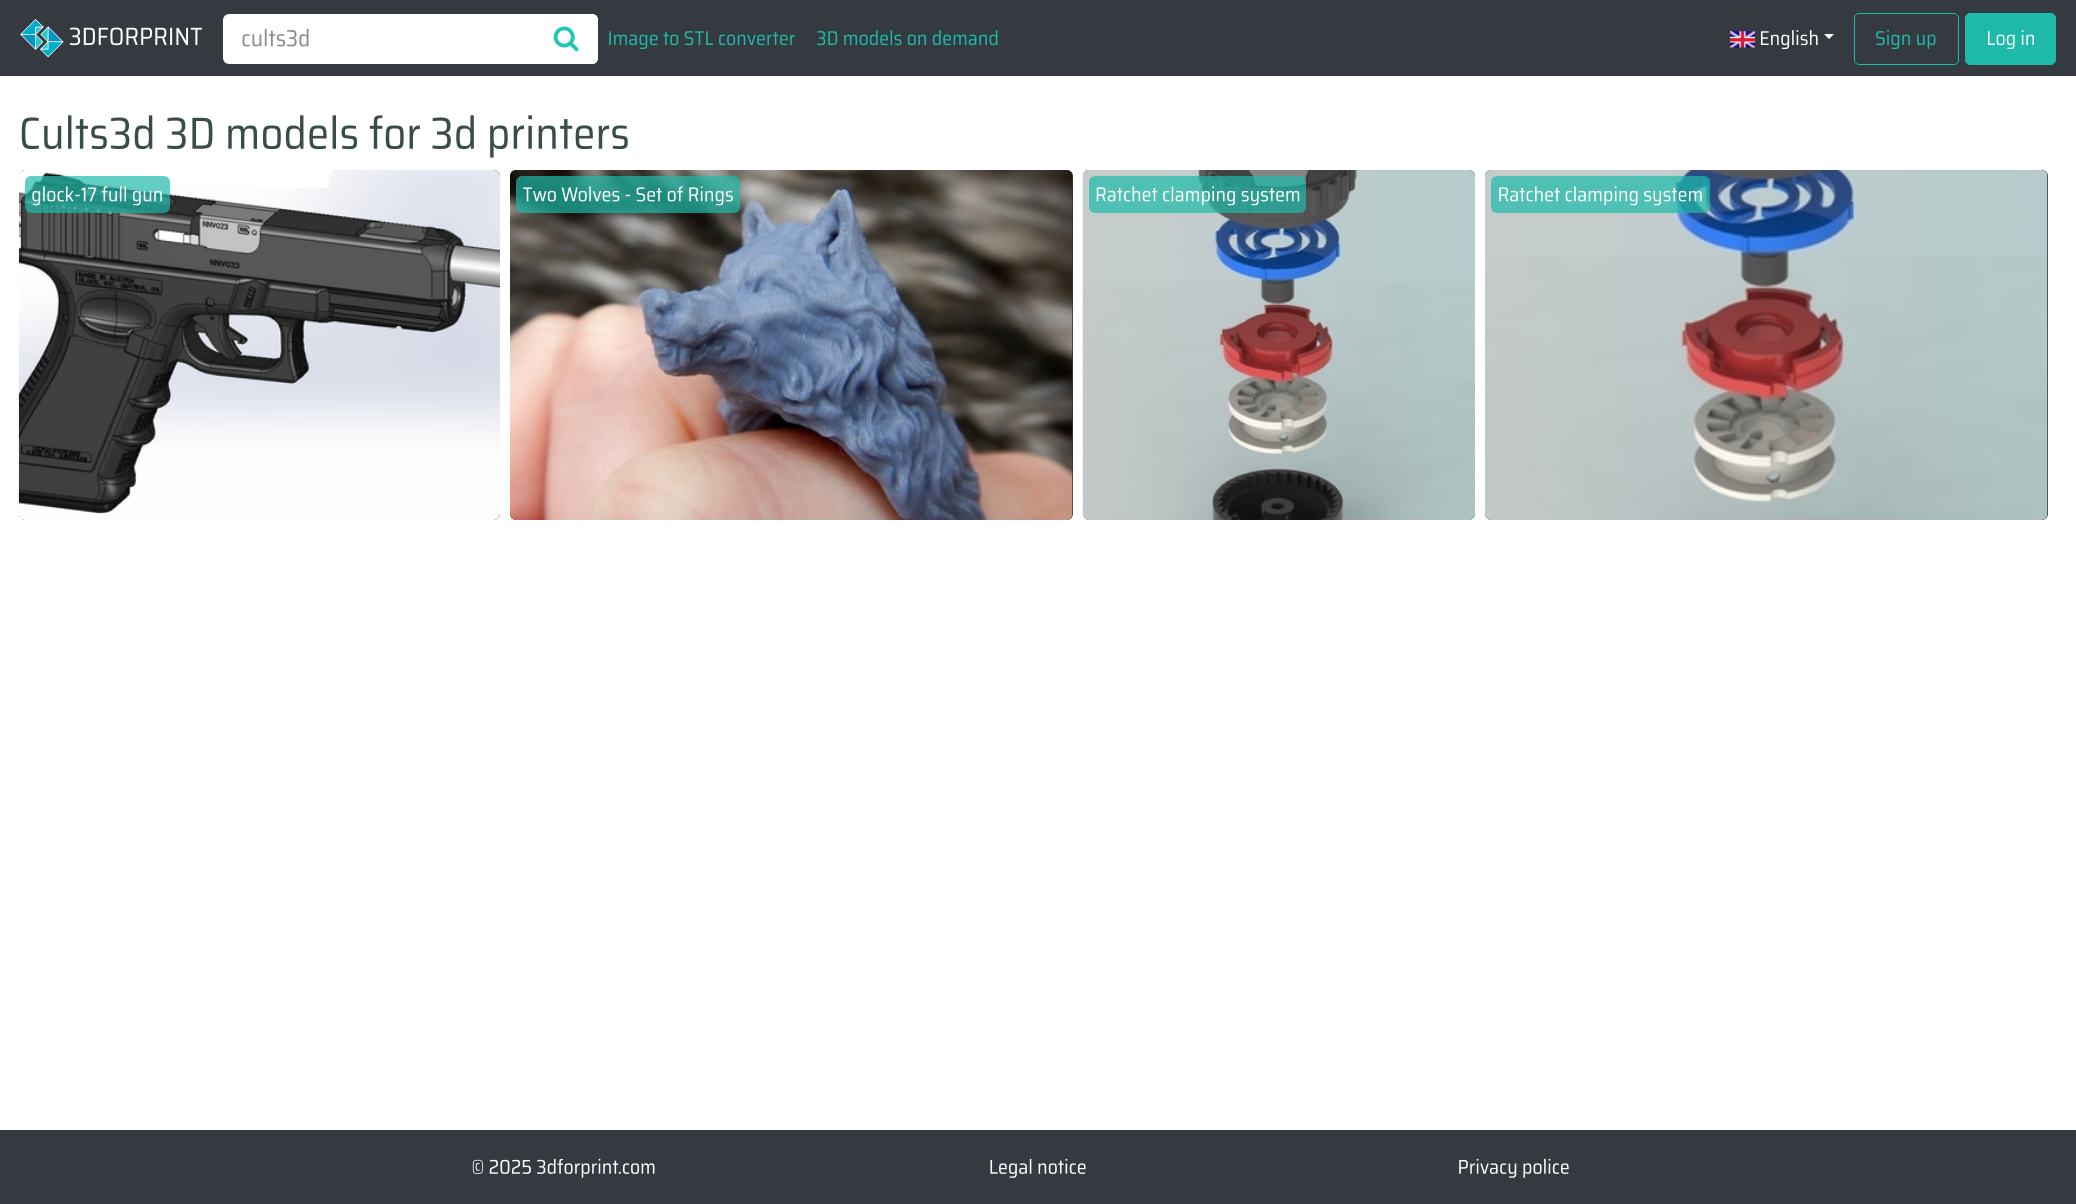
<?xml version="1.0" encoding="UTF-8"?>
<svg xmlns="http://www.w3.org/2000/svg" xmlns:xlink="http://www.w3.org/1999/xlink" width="2076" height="1204">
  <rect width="100%" height="100%" fill="#ffffff" />
  <rect width="2076" height="76" fill="#343a40" />
  <image x="20" y="19" width="44" height="39" xlink:href="image1.png" />
  <image x="69" y="27" width="134" height="19" xlink:href="image2.png" />
  <rect x="223" y="14" width="375" height="50" rx="6" fill="#ffffff" />
  <image x="242" y="28" width="67" height="19" xlink:href="image3.png" />
  <path d="M 535 14 h 57 c 3.5 0 6 2.5 6 6 v 38 c 0 3.5 -2.5 6 -6 6 h -57 z" fill="#ffffff" />
  <image x="553" y="26" width="26" height="26" xlink:href="image4.png" />
  <image x="609" y="31" width="186" height="18" xlink:href="image5.png" />
  <image x="817" y="30" width="181" height="16" xlink:href="image6.png" />
  <image x="1730" y="31" width="25" height="17" xlink:href="image7.png" />
  <image x="1760" y="30" width="58" height="20" xlink:href="image8.png" />
  <path d="M 1824 34 h 10 l -5 5 z" fill="#ffffff" />
  <rect x="1854.5" y="13.5" width="104" height="51" rx="4.5" fill="none" stroke="#1ebaa9" />
  <image x="1876" y="30" width="60" height="19" xlink:href="image9.png" />
  <rect x="1965.5" y="13.5" width="90" height="51" rx="4.5" fill="#1ebaa9" stroke="#1ebaa9" />
  <image x="1987" y="30" width="47" height="20" xlink:href="image10.png" />
  <image x="21" y="115" width="607" height="43" xlink:href="image11.png" />
  <rect x="19" y="170" width="481" height="350" rx="6" fill="#333333" />
  <image x="18" y="170" width="482" height="350" xlink:href="image12.png" />
  <rect x="25" y="176" width="145" height="37" rx="6" fill="#1ebaa9" fill-opacity="0.7" />
  <image x="32" y="186" width="130" height="20" xlink:href="image13.png" />
  <rect x="510" y="170" width="563" height="350" rx="6" fill="#333333" />
  <image x="510" y="170" width="563" height="350" xlink:href="image14.png" />
  <rect x="516" y="176" width="224" height="37" rx="6" fill="#1ebaa9" fill-opacity="0.7" />
  <image x="523" y="186" width="210" height="20" xlink:href="image15.png" />
  <rect x="1083" y="170" width="392" height="350" rx="6" fill="#333333" />
  <image x="1082" y="170" width="393" height="350" xlink:href="image16.png" />
  <rect x="1089" y="176" width="217" height="37" rx="6" fill="#1ebaa9" fill-opacity="0.7" />
  <image x="1096" y="186" width="204" height="20" xlink:href="image17.png" />
  <rect x="1485" y="170" width="563" height="350" rx="6" fill="#333333" />
  <image x="1485" y="170" width="563" height="350" xlink:href="image18.png" />
  <rect x="1491" y="176" width="219" height="37" rx="6" fill="#1ebaa9" fill-opacity="0.7" />
  <image x="1499" y="186" width="203" height="20" xlink:href="image19.png" />
  <rect y="1130" width="2076" height="74" fill="#343a40" />
  <image x="472" y="1158" width="183" height="20" xlink:href="image20.png" />
  <image x="990" y="1158" width="96" height="20" xlink:href="image21.png" />
  <image x="1459" y="1158" width="110" height="20" xlink:href="image22.png" />
</svg>
